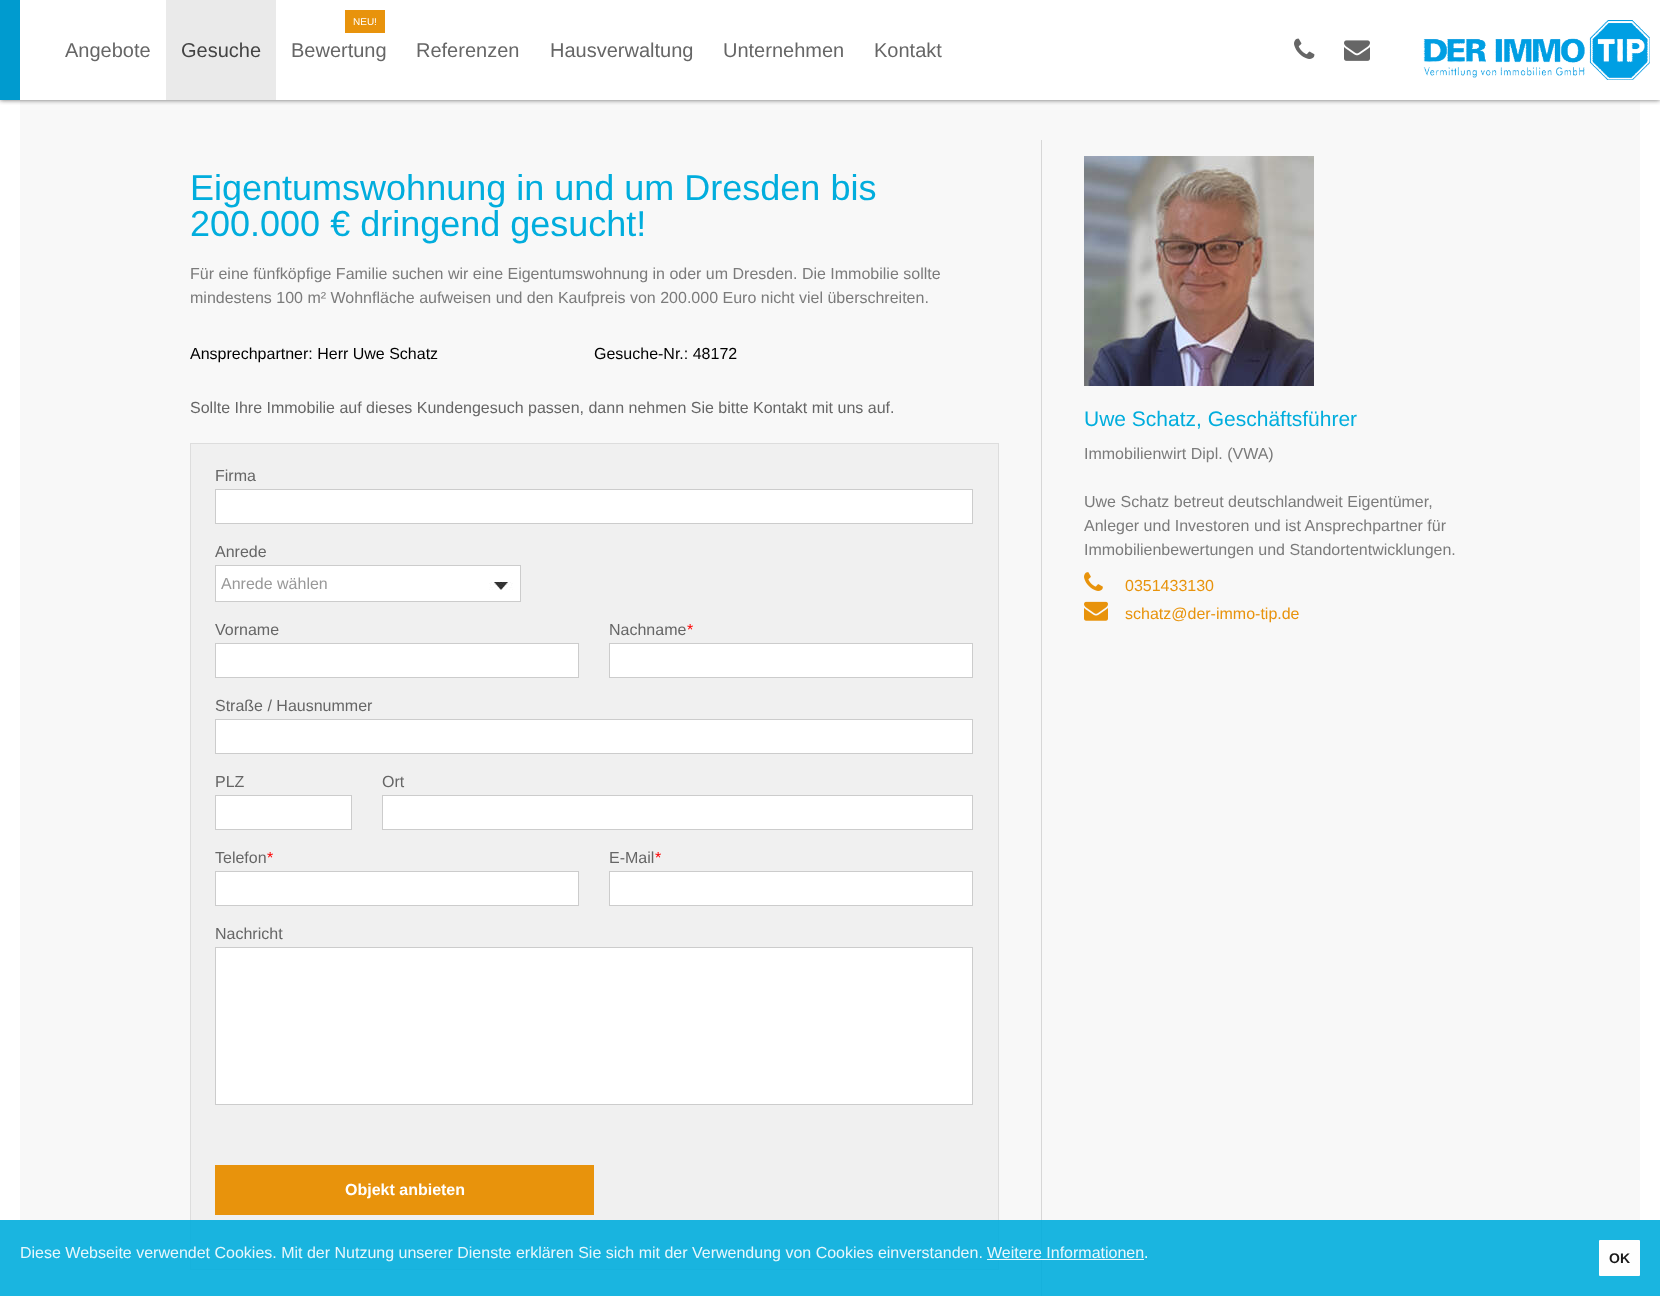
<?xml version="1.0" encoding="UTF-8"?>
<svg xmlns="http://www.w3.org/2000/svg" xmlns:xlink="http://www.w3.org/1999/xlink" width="1660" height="1296">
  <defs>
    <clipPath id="clip1"><rect x="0" y="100" width="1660" height="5" /></clipPath>
  </defs>
  <rect width="100%" height="100%" fill="#ffffff" />
  <rect x="20" y="100" width="1620" height="1196" fill="#f8f8f8" />
  <g clip-path="url(#clip1)">
    <rect width="1660" height="100" fill="#666666" filter="blur(2.5px)" />
  </g>
  <rect width="20" height="100" fill="#009bcf" />
  <rect x="166" width="110" height="100" fill="#eaeaea" />
  <rect x="345" y="10" width="40" height="23" fill="#e8930c" />
  <image x="1294" y="38" width="21" height="21" xlink:href="image1.png" />
  <image x="1344" y="40" width="26" height="21" xlink:href="image2.png" />
  <image x="1423" y="20" width="227" height="60" xlink:href="image3.png" />
  <rect x="1041" y="140" width="1" height="1156" fill="#d7d7d7" />
  <rect x="190.5" y="443.5" width="808" height="826" fill="#f0f0f0" stroke="#dddddd" />
  <rect x="215.5" y="489.5" width="757" height="34" fill="#ffffff" stroke="#cccccc" />
  <rect x="215.5" y="565.5" width="305" height="36" fill="none" stroke="#cccccc" />
  <rect x="216" y="566" width="304" height="35" fill="#ffffff" />
  <image x="489" y="582" width="24" height="8" xlink:href="image4.png" />
  <rect x="215.5" y="643.5" width="363" height="34" fill="#ffffff" stroke="#cccccc" />
  <rect x="609.5" y="643.5" width="363" height="34" fill="#ffffff" stroke="#cccccc" />
  <rect x="215.5" y="719.5" width="757" height="34" fill="#ffffff" stroke="#cccccc" />
  <rect x="215.5" y="795.5" width="136" height="34" fill="#ffffff" stroke="#cccccc" />
  <rect x="382.5" y="795.5" width="590" height="34" fill="#ffffff" stroke="#cccccc" />
  <rect x="215.5" y="871.5" width="363" height="34" fill="#ffffff" stroke="#cccccc" />
  <rect x="609.5" y="871.5" width="363" height="34" fill="#ffffff" stroke="#cccccc" />
  <rect x="215.5" y="947.5" width="757" height="157" fill="#ffffff" stroke="#cccccc" />
  <rect x="215" y="1165" width="379" height="50" fill="#e8930c" />
  <image x="1084" y="156" width="230" height="230" xlink:href="image5.png" />
  <image x="1084" y="572" width="19" height="19" xlink:href="image6.png" />
  <image x="1084" y="601" width="24" height="20" xlink:href="image7.png" />
  <rect y="1220" width="1660" height="76" fill="#01addd" fill-opacity="0.9" />
  <rect x="987" y="1259" width="157" height="1" fill="#ffffff" fill-opacity="0.9" />
  <rect x="1599" y="1240" width="41" height="36" rx="1" fill="#fefefe" />
  <text x="65" y="57" style="font-family: Liberation Sans; font-size: 20px; fill: #666666">Angebote</text>
  <text x="181" y="57" style="font-family: Liberation Sans; font-size: 20px; fill: #434343">Gesuche</text>
  <text x="353" y="25" style="font-family: Liberation Sans; font-size: 10px; fill: #ffffff">NEU!</text>
  <text x="291" y="57" style="font-family: Liberation Sans; font-size: 20px; fill: #666666">Bewertung</text>
  <text x="416" y="57" style="font-family: Liberation Sans; font-size: 20px; fill: #666666">Referenzen</text>
  <text x="550" y="57" style="font-family: Liberation Sans; font-size: 20px; fill: #666666">Hausverwaltung</text>
  <text x="723" y="57" style="font-family: Liberation Sans; font-size: 20px; fill: #666666">Unternehmen</text>
  <text x="874" y="57" style="font-family: Liberation Sans; font-size: 20px; fill: #666666">Kontakt</text>
  <text x="190" y="200" style="font-family: Liberation Sans; font-size: 36px; fill: #01addd">Eigentumswohnung in und um Dresden bis</text>
  <text x="190" y="236" style="font-family: Liberation Sans; font-size: 36px; fill: #01addd">200.000 € dringend gesucht!</text>
  <text x="190" y="279" style="font-family: Liberation Sans; font-size: 16px; fill: #7b7b7b">Für eine fünfköpfige Familie suchen wir eine Eigentumswohnung in oder um Dresden. Die Immobilie sollte</text>
  <text x="190" y="303" style="font-family: Liberation Sans; font-size: 16px; fill: #7b7b7b">mindestens 100 m² Wohnfläche aufweisen und den Kaufpreis von 200.000 Euro nicht viel überschreiten.</text>
  <text x="190" y="359" style="font-family: Liberation Sans; font-size: 16px; fill: #000000">Ansprechpartner: Herr Uwe Schatz</text>
  <text x="594" y="359" style="font-family: Liberation Sans; font-size: 16px; fill: #000000">Gesuche-Nr.: 48172</text>
  <text x="190" y="413" style="font-family: Liberation Sans; font-size: 16px; fill: #666666">Sollte Ihre Immobilie auf dieses Kundengesuch passen, dann nehmen Sie bitte Kontakt mit uns auf.</text>
  <text x="215" y="481" style="font-family: Liberation Sans; font-size: 16px; fill: #666666">Firma</text>
  <text x="215" y="557" style="font-family: Liberation Sans; font-size: 16px; fill: #666666">Anrede</text>
  <text x="221" y="589" style="font-family: Liberation Sans; font-size: 16px; fill: #999999">Anrede wählen</text>
  <text x="215" y="635" style="font-family: Liberation Sans; font-size: 16px; fill: #666666">Vorname</text>
  <text x="609" y="635" style="font-family: Liberation Sans; font-size: 16px; fill: #666666">Nachname</text>
  <text x="687" y="635" style="font-family: Liberation Sans; font-size: 16px; fill: #ff0000">*</text>
  <text x="215" y="711" style="font-family: Liberation Sans; font-size: 16px; fill: #666666">Straße / Hausnummer</text>
  <text x="215" y="787" style="font-family: Liberation Sans; font-size: 16px; fill: #666666">PLZ</text>
  <text x="382" y="787" style="font-family: Liberation Sans; font-size: 16px; fill: #666666">Ort</text>
  <text x="215" y="863" style="font-family: Liberation Sans; font-size: 16px; fill: #666666">Telefon</text>
  <text x="267" y="863" style="font-family: Liberation Sans; font-size: 16px; fill: #ff0000">*</text>
  <text x="609" y="863" style="font-family: Liberation Sans; font-size: 16px; fill: #666666">E-Mail</text>
  <text x="655" y="863" style="font-family: Liberation Sans; font-size: 16px; fill: #ff0000">*</text>
  <text x="215" y="939" style="font-family: Liberation Sans; font-size: 16px; fill: #666666">Nachricht</text>
  <text x="345" y="1195" style="font-family: Liberation Sans; font-size: 16px; font-weight: bold; fill: #ffffff">Objekt anbieten</text>
  <text x="1084" y="426" style="font-family: Liberation Sans; font-size: 21px; fill: #01addd">Uwe Schatz, Geschäftsführer</text>
  <text x="1084" y="459" style="font-family: Liberation Sans; font-size: 16px; fill: #7b7b7b">Immobilienwirt Dipl. (VWA)</text>
  <text x="1084" y="507" style="font-family: Liberation Sans; font-size: 16px; fill: #7b7b7b">Uwe Schatz betreut deutschlandweit Eigentümer,</text>
  <text x="1084" y="531" style="font-family: Liberation Sans; font-size: 16px; fill: #7b7b7b">Anleger und Investoren und ist Ansprechpartner für</text>
  <text x="1084" y="555" style="font-family: Liberation Sans; font-size: 16px; fill: #7b7b7b">Immobilienbewertungen und Standortentwicklungen.</text>
  <text x="1125" y="591" style="font-family: Liberation Sans; font-size: 16px; fill: #e8930c">0351433130</text>
  <text x="1125" y="619" style="font-family: Liberation Sans; font-size: 16px; fill: #e8930c">schatz@der-immo-tip.de</text>
  <text x="20" y="1258" style="font-family: Liberation Sans; font-size: 16px; fill: #e8f7fc">Diese Webseite verwendet Cookies. Mit der Nutzung unserer Dienste erklären Sie sich mit der Verwendung von Cookies einverstanden.</text>
  <text x="987" y="1258" style="font-family: Liberation Sans; font-size: 16px; fill: #e8f7fc">Weitere Informationen</text>
  <text x="1144" y="1258" style="font-family: Liberation Sans; font-size: 16px; fill: #ffffff">.</text>
  <text x="1609" y="1263" style="font-family: Liberation Sans; font-size: 14px; font-weight: bold; fill: #191919">OK</text>
</svg>
